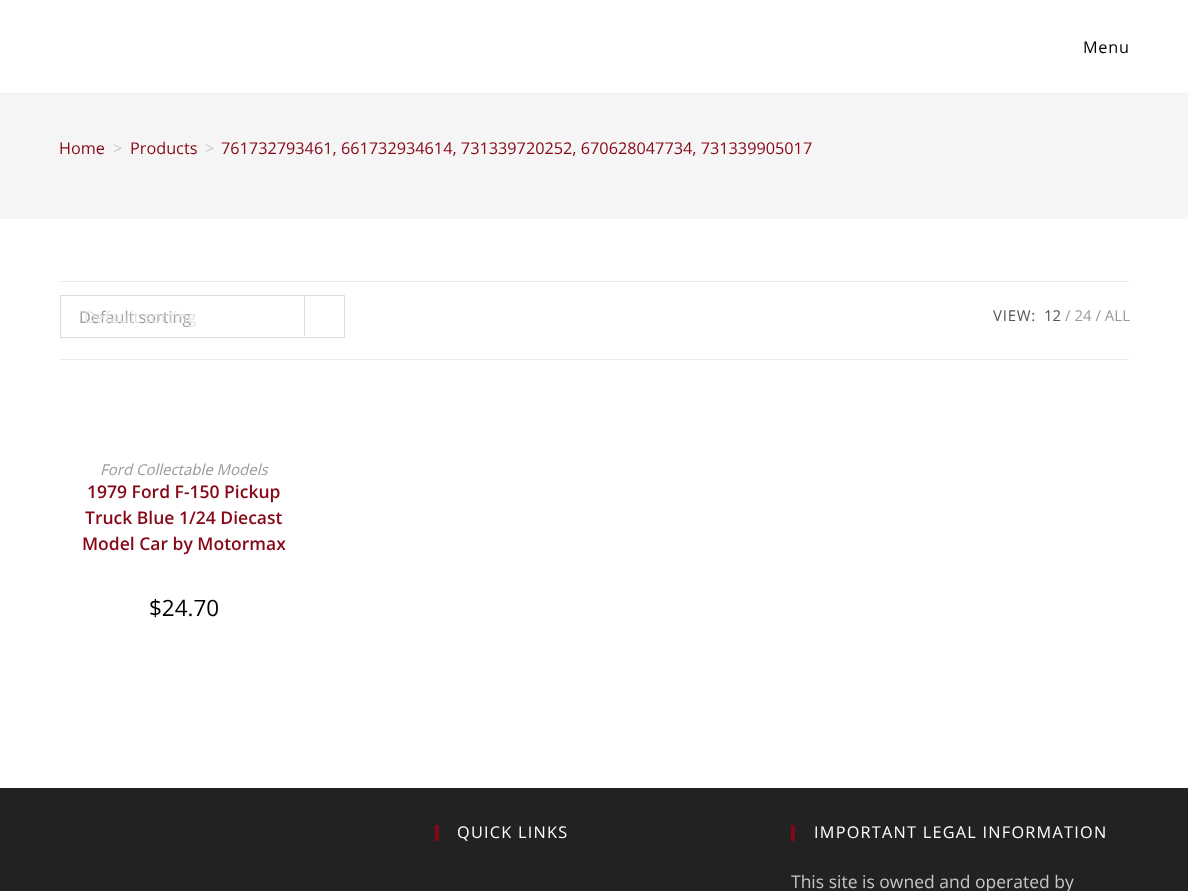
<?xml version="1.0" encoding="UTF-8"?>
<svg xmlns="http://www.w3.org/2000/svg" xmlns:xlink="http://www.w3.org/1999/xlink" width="1188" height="891">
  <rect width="100%" height="100%" fill="#ffffff" />
  <rect y="93" width="1188" height="1" fill="#f1f1f1" />
  <rect y="94" width="1188" height="125" fill="#f5f5f5" />
  <rect x="60" y="281" width="1069" height="1" fill="#eaeaea" />
  <rect x="60" y="359" width="1069" height="1" fill="#eaeaea" />
  <rect x="60.5" y="295.5" width="284" height="42" fill="none" stroke="#dddddd" />
  <rect x="304" y="296" width="1" height="40" fill="#dddddd" />
  <rect y="788" width="1188" height="103" fill="#222222" />
  <rect x="435" y="825" width="4" height="16" fill="#860715" />
  <rect x="791" y="825" width="4" height="16" fill="#860715" />
  <text x="1083" y="53" style="font-family: Open Sans; font-size: 16.25px; letter-spacing: 0.75px; fill: #000000">Menu</text>
  <text x="59" y="154" style="font-family: Open Sans; font-size: 16.25px; fill: #860715">Home</text>
  <text x="113" y="154" style="font-family: Open Sans; font-size: 16.25px; fill: #c6c6c6">&gt;</text>
  <text x="130" y="154" style="font-family: Open Sans; font-size: 16.25px; fill: #860715">Products</text>
  <text x="205" y="154" style="font-family: Open Sans; font-size: 16.25px; fill: #c6c6c6">&gt;</text>
  <text x="221" y="154" style="font-family: Open Sans; font-size: 16.25px; fill: #860715">761732793461, 661732934614, 731339720252, 670628047734, 731339905017</text>
  <text x="79" y="323" style="font-family: Open Sans; font-size: 16.25px; fill: #999999">Default sorting</text>
  <text x="84" y="323" style="font-family: Open Sans; font-size: 16.25px; fill: #e3e3e3">Default sorting</text>
  <text x="993" y="321" style="font-family: Open Sans; font-size: 15px; letter-spacing: 0.75px; fill: #555555">VIEW:</text>
  <text x="1044" y="321" style="font-family: Open Sans; font-size: 15px; fill: #555555">12</text>
  <text x="1065" y="321" style="font-family: Open Sans; font-size: 15px; fill: #999999">/ 24 / ALL</text>
  <text x="100" y="475" style="font-family: Open Sans; font-size: 15px; font-style: italic; fill: #999999">Ford Collectable Models</text>
  <text x="87" y="498" style="font-family: Open Sans; font-size: 17.5px; font-weight: 600; fill: #860715">1979 Ford F-150 Pickup</text>
  <text x="85" y="524" style="font-family: Open Sans; font-size: 17.5px; font-weight: 600; fill: #860715">Truck Blue 1/24 Diecast</text>
  <text x="82" y="550" style="font-family: Open Sans; font-size: 17.5px; font-weight: 600; fill: #860715">Model Car by Motormax</text>
  <text x="149" y="616" style="font-family: Open Sans; font-size: 22.5px; fill: #000000">$24.70</text>
  <text x="457" y="838" style="font-family: Open Sans; font-size: 16.25px; letter-spacing: 1.25px; fill: #ffffff">QUICK LINKS</text>
  <text x="814" y="838" style="font-family: Open Sans; font-size: 16.25px; letter-spacing: 1.25px; fill: #ffffff">IMPORTANT LEGAL INFORMATION</text>
  <text x="791" y="888" style="font-family: Open Sans; font-size: 17.5px; fill: #c6c6c6">This site is owned and operated by</text>
</svg>
